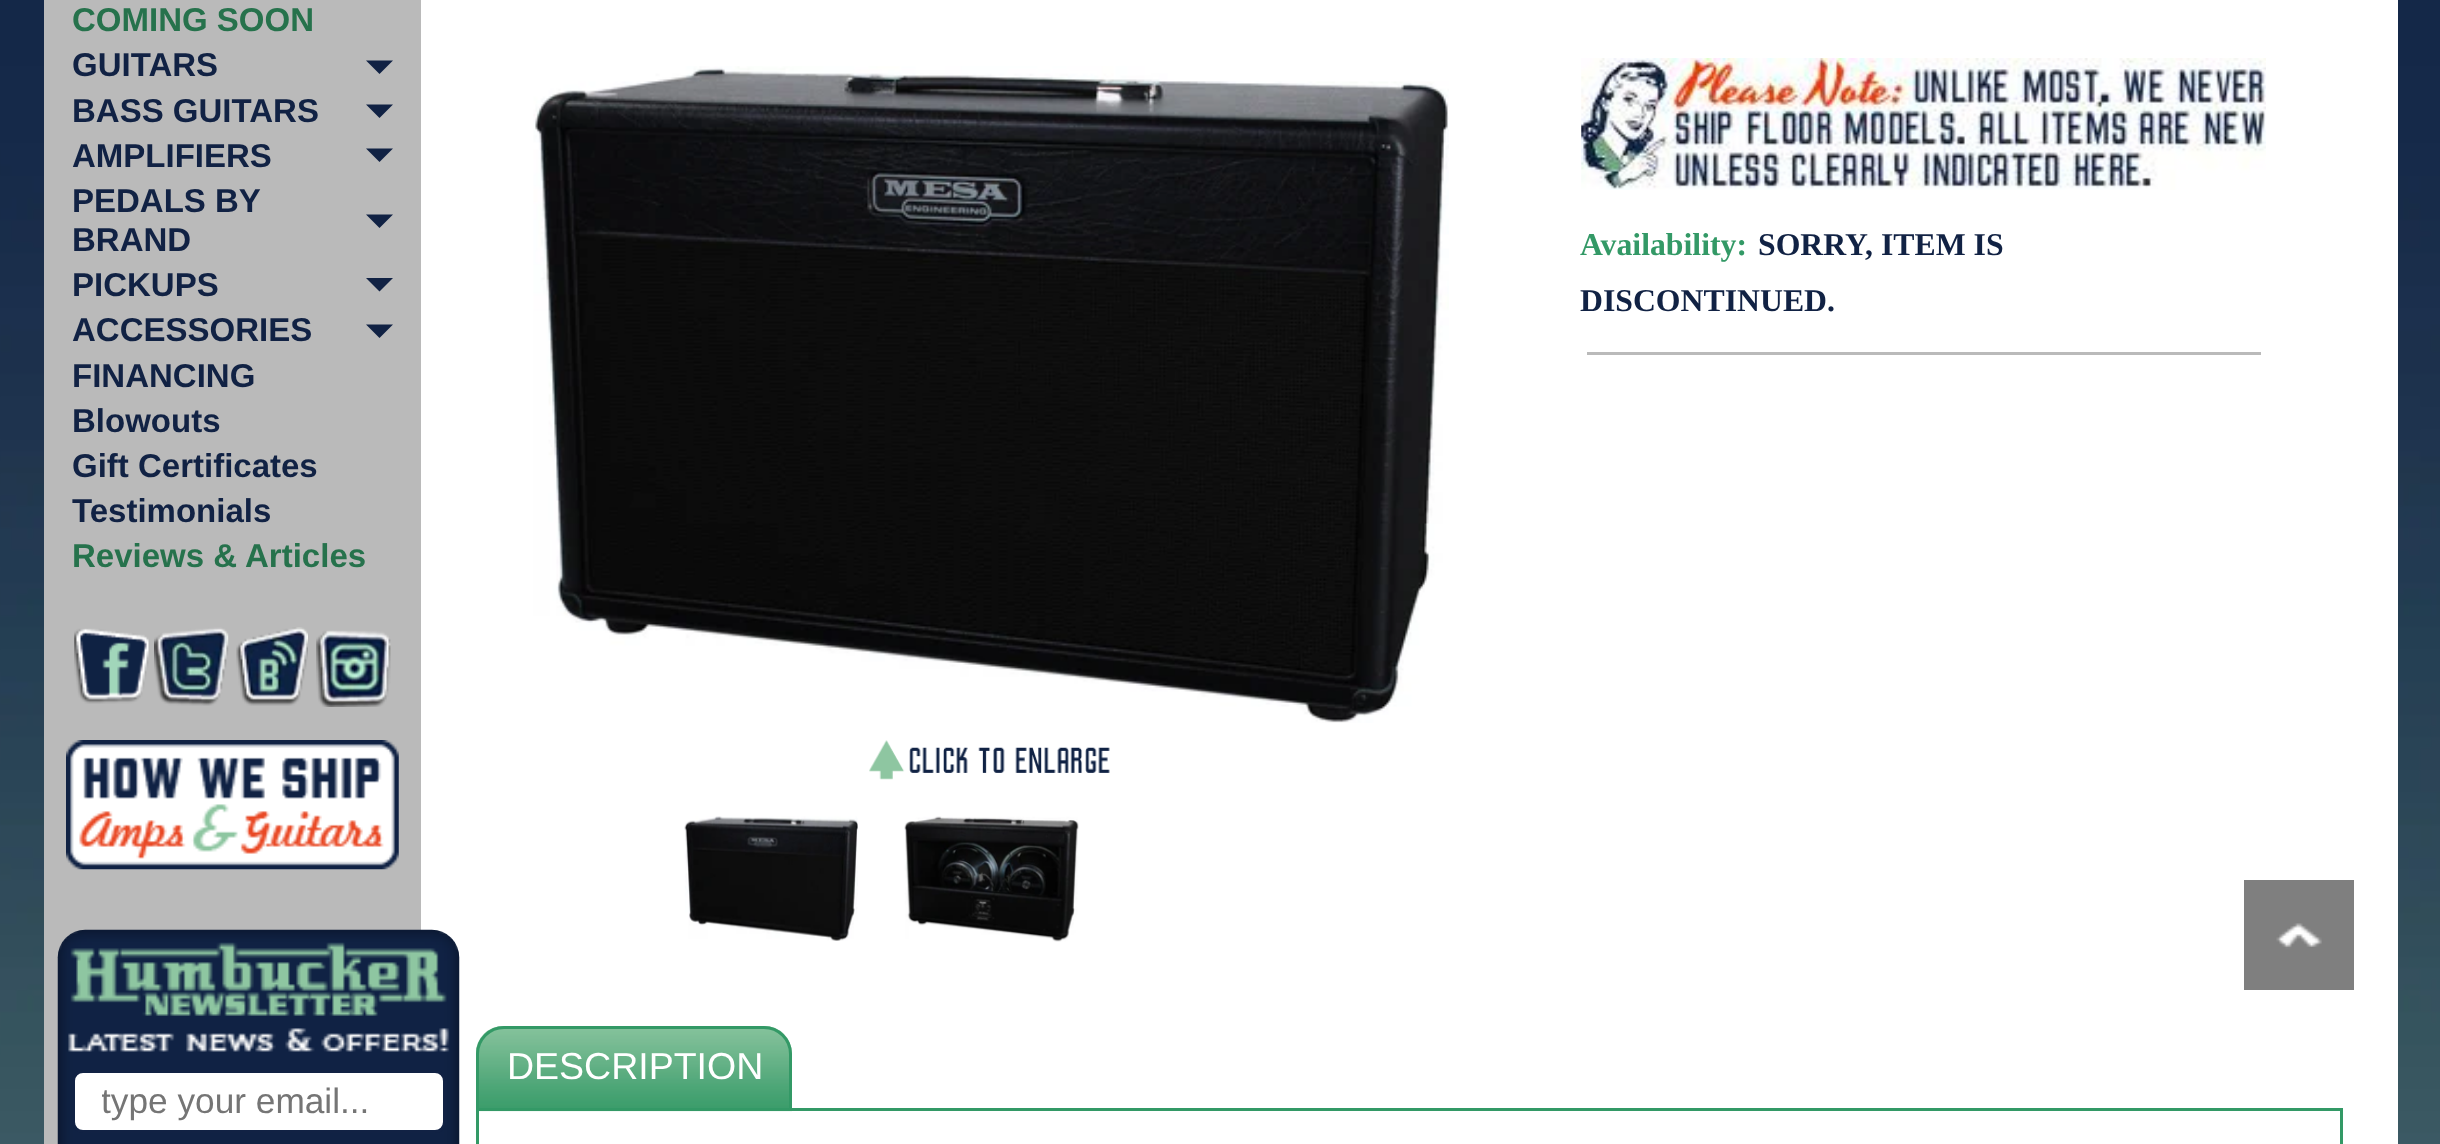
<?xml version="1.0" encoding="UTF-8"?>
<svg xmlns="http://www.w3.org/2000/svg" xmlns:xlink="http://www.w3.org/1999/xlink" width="2440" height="1144">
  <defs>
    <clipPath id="clip1"><rect x="102" y="1081" width="333" height="41" /></clipPath>
  </defs>
  <rect width="100%" height="100%" fill="#ffffff" />
  <image x="0" y="0" width="2440" height="1144" xlink:href="image1.png" />
  <rect x="421" width="1977" height="1144" fill="#ffffff" />
  <rect x="44" width="377" height="1144" fill="#bababa" />
  <path d="M 366 60.5 h 27 l -13.5 13.5 z" fill="#112244" />
  <path d="M 366 104.5 h 27 l -13.5 13.5 z" fill="#112244" />
  <path d="M 366 148.5 h 27 l -13.5 13.5 z" fill="#112244" />
  <path d="M 366 214.5 h 27 l -13.5 13.5 z" fill="#112244" />
  <path d="M 366 278 h 27 l -13.5 13.5 z" fill="#112244" />
  <path d="M 366 324.5 h 27 l -13.5 13.5 z" fill="#112244" />
  <image x="74" y="628" width="75" height="76" xlink:href="image2.png" />
  <image x="154" y="627" width="75" height="79" xlink:href="image3.png" />
  <image x="236" y="627" width="72" height="79" xlink:href="image4.png" />
  <image x="316" y="630" width="75" height="77" xlink:href="image5.png" />
  <image x="66" y="740" width="333" height="130" xlink:href="image6.png" />
  <image x="57" y="929" width="403" height="215" xlink:href="image7.png" />
  <rect x="73.5" y="1071.5" width="371" height="60" rx="9.5" fill="#ffffff" stroke="#112244" stroke-width="3" />
  <image x="533" y="66" width="916" height="657" xlink:href="image8.png" />
  <image x="869" y="740" width="241" height="40" xlink:href="image9.png" />
  <image x="684" y="816" width="174" height="125" xlink:href="image10.png" />
  <image x="904" y="816" width="175" height="126" xlink:href="image11.png" />
  <image x="1581" y="58" width="685" height="132" xlink:href="image12.png" />
  <rect x="1587" y="352" width="674" height="3" fill="#bababa" />
  <rect x="477.5" y="1109.5" width="1864" height="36" fill="none" stroke="#339966" stroke-width="3" />
  <image x="476" y="1026" width="316" height="86" xlink:href="image13.png" />
  <path d="M 504 1027.5 h 260 c 14.5 0 26.5 12 26.5 26.5 v 55.5 h -313 v -55.5 c 0 -14.5 12 -26.5 26.5 -26.5 z" fill="none" stroke="#339966" stroke-width="3" />
  <image x="2244" y="880" width="110" height="110" xlink:href="image14.png" />
  <text x="72" y="31" style="font-family: Liberation Sans; font-size: 33px; font-weight: bold; fill: #26724c">COMING SOON</text>
  <text x="72" y="76" style="font-family: Liberation Sans; font-size: 33px; font-weight: bold; fill: #112244">GUITARS</text>
  <text x="72" y="122" style="font-family: Liberation Sans; font-size: 33px; font-weight: bold; fill: #112244">BASS GUITARS</text>
  <text x="72" y="167" style="font-family: Liberation Sans; font-size: 33px; font-weight: bold; fill: #112244">AMPLIFIERS</text>
  <text x="72" y="212" style="font-family: Liberation Sans; font-size: 33px; font-weight: bold; fill: #112244">PEDALS BY</text>
  <text x="72" y="251" style="font-family: Liberation Sans; font-size: 33px; font-weight: bold; fill: #112244">BRAND</text>
  <text x="72" y="296" style="font-family: Liberation Sans; font-size: 33px; font-weight: bold; fill: #112244">PICKUPS</text>
  <text x="72" y="341" style="font-family: Liberation Sans; font-size: 33px; font-weight: bold; fill: #112244">ACCESSORIES</text>
  <text x="72" y="387" style="font-family: Liberation Sans; font-size: 33px; font-weight: bold; fill: #112244">FINANCING</text>
  <text x="72" y="432" style="font-family: Liberation Sans; font-size: 33px; font-weight: bold; fill: #112244">Blowouts</text>
  <text x="72" y="477" style="font-family: Liberation Sans; font-size: 33px; font-weight: bold; fill: #112244">Gift Certificates</text>
  <text x="72" y="522" style="font-family: Liberation Sans; font-size: 33px; font-weight: bold; fill: #112244">Testimonials</text>
  <text x="72" y="567" style="font-family: Liberation Sans; font-size: 33px; font-weight: bold; fill: #26724c">Reviews &amp; Articles</text>
  <g clip-path="url(#clip1)">
    <text x="101" y="1113" style="font-family: Liberation Sans; font-size: 35.25px; fill: #757575">type your email...</text>
  </g>
  <text x="1580" y="255" style="font-family: Liberation Serif; font-size: 31.75px; font-weight: bold; fill: #339966">Availability:</text>
  <text x="1758" y="255" style="font-family: Liberation Serif; font-size: 31.75px; font-weight: bold; fill: #112244">SORRY, ITEM IS</text>
  <text x="1580" y="311" style="font-family: Liberation Serif; font-size: 31.75px; font-weight: bold; fill: #112244">DISCONTINUED.</text>
  <text x="507" y="1079" style="font-family: Liberation Sans; font-size: 37.5px; fill: #ffffff">DESCRIPTION</text>
</svg>
